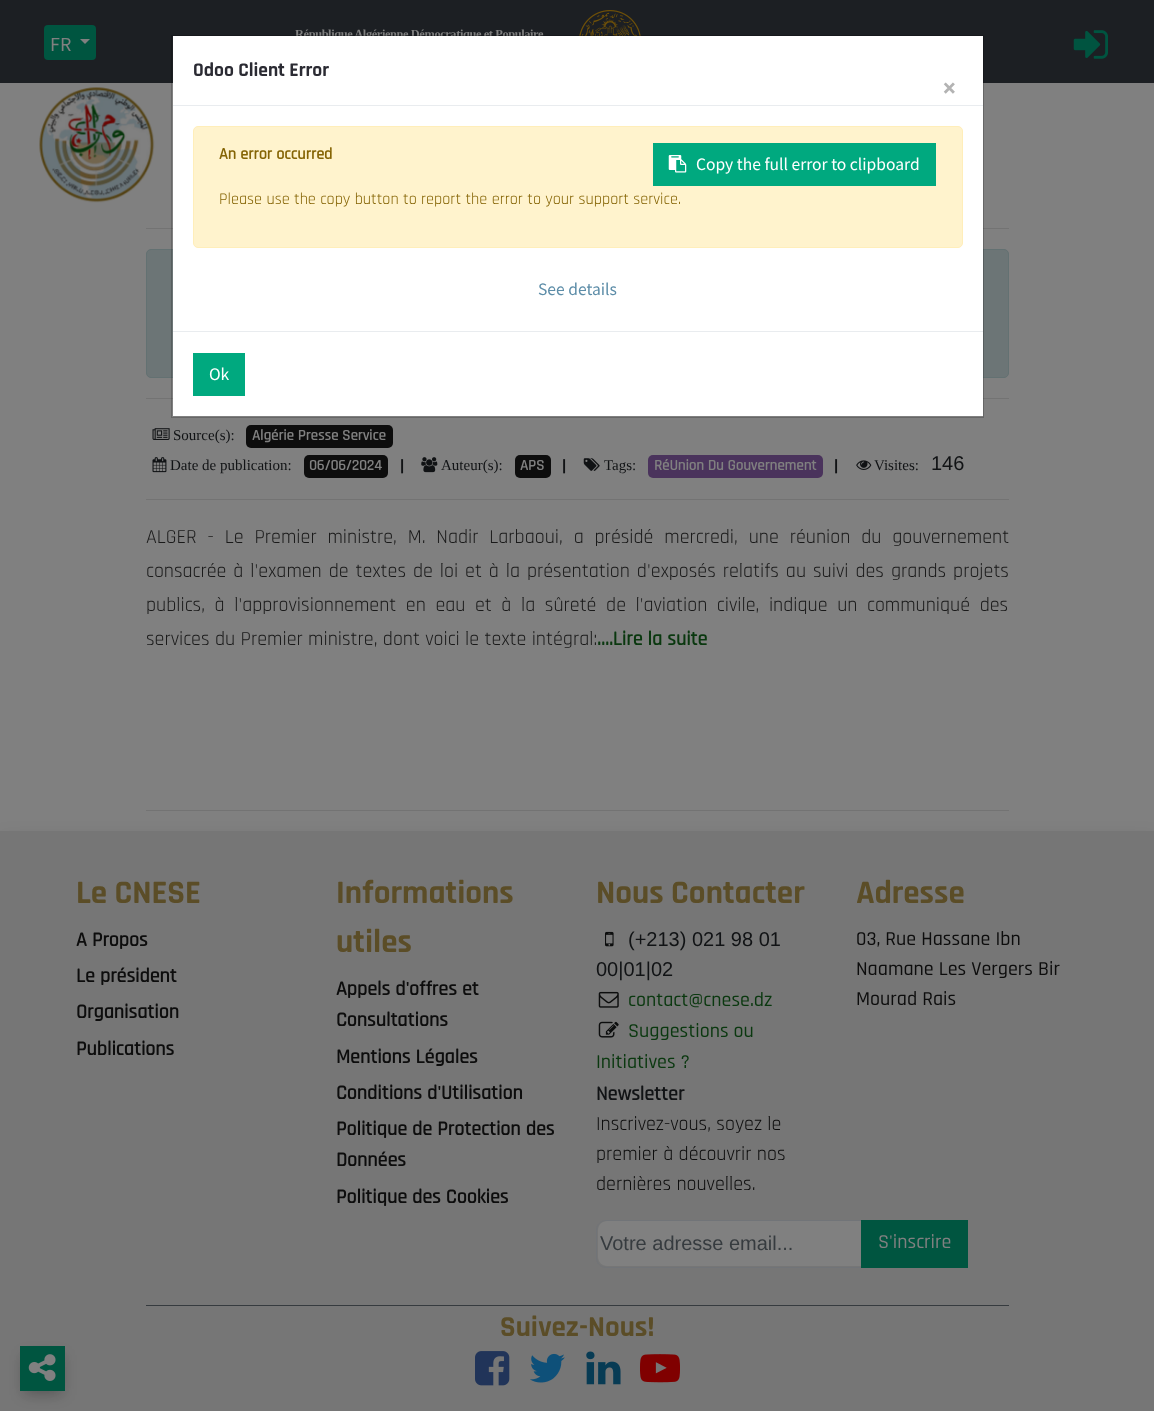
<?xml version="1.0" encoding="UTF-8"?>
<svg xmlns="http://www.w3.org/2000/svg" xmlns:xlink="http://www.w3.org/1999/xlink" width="1154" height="1411">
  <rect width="100%" height="100%" fill="#808080" />
  <rect width="1154" height="83" fill="#1c1f23" />
  <rect x="44" y="25" width="52" height="35" rx="4" fill="#005540" />
  <path d="M 80 39 h 10 l -5 5 z" fill="#808080" />
  <image x="579" y="10" width="62" height="26" xlink:href="image1.png" />
  <image x="1073" y="30" width="35" height="29" xlink:href="image2.png" />
  <image x="39" y="87" width="116" height="116" xlink:href="image3.png" />
  <rect x="146" y="228" width="863" height="1" fill="#737373" />
  <rect x="146.5" y="249.5" width="862" height="128" rx="4.5" fill="#6c7576" stroke="#637172" />
  <rect x="146" y="398" width="863" height="1" fill="#737373" />
  <image x="152" y="428" width="18" height="12" xlink:href="image4.png" />
  <rect x="246" y="425" width="147" height="23" rx="5" fill="#0d0d0d" />
  <image x="152" y="457" width="15" height="16" xlink:href="image5.png" />
  <rect x="304" y="455" width="84" height="23" rx="5" fill="#0d0d0d" />
  <image x="421" y="457" width="17" height="16" xlink:href="image6.png" />
  <rect x="515" y="455" width="36" height="23" rx="5" fill="#0d0d0d" />
  <image x="583" y="458" width="17" height="13" xlink:href="image7.png" />
  <rect x="648" y="455" width="175" height="23" rx="5" fill="#4a335c" />
  <image x="856" y="460" width="16" height="10" xlink:href="image8.png" />
  <rect x="146" y="499" width="863" height="1" fill="#737373" />
  <rect x="146" y="810" width="863" height="1" fill="#737373" />
  <rect y="841" width="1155" height="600" fill="#000000" fill-opacity="0.15" filter="blur(10px)" />
  <rect y="831" width="1154" height="580" fill="#767676" />
  <rect x="29" y="1360" width="27" height="28" fill="#000000" fill-opacity="0.15" filter="blur(7.5px)" />
  <rect x="23" y="1355" width="40" height="40" fill="#000000" fill-opacity="0.18" filter="blur(7px)" />
  <rect x="20" y="1346" width="45" height="45" fill="#005540" />
  <image x="28" y="1354" width="28" height="27" xlink:href="image9.png" />
  <image x="605" y="931" width="9" height="16" xlink:href="image10.png" />
  <image x="598" y="991" width="21" height="17" xlink:href="image11.png" />
  <image x="598" y="1021" width="21" height="17" xlink:href="image12.png" />
  <path d="M 607 1221 h 254 v 45 h -254 c -5 0 -9 -4 -9 -9 v -27 c 0 -5 4 -9 9 -9 z" fill="#808080" />
  <path d="M 606 1220.5 h 256.5 v 47 h -256.5 c -5 0 -9.5 -4.5 -9.5 -9.5 v -28 c 0 -5 4.5 -9.5 9.5 -9.5 z" fill="none" stroke="#717478" />
  <rect x="861" y="1220" width="107" height="48" fill="#005540" />
  <rect x="146" y="1305" width="863" height="1" fill="#363b3f" />
  <image x="475" y="1351" width="35" height="35" xlink:href="image13.png" />
  <image x="530" y="1353" width="35" height="30" xlink:href="image14.png" />
  <image x="586" y="1351" width="35" height="34" xlink:href="image15.png" />
  <image x="640" y="1354" width="40" height="29" xlink:href="image16.png" />
  <text x="50" y="51" style="font-family: Source Sans Pro; font-size: 20px; fill: #808080">FR</text>
  <text x="295" y="38" style="font-family: Liberation Serif; font-size: 12.4px; font-weight: bold; letter-spacing: -0.4px; fill: #808080">République Algérienne Démocratique et Populaire</text>
  <text x="173" y="440" style="font-family: Liberation Serif; font-size: 15px; fill: #111315">Source(s):</text>
  <text x="252" y="440" style="font-family: 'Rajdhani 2'; font-size: 15px; font-weight: bold; fill: #808080">Algérie Presse Service</text>
  <text x="170" y="470" style="font-family: Liberation Serif; font-size: 15px; fill: #111315">Date de publication:</text>
  <text x="309" y="470" style="font-family: 'Rajdhani 2'; font-size: 15px; font-weight: bold; fill: #808080">06/06/2024</text>
  <text x="400" y="470" style="font-family: Liberation Sans; font-size: 15px; font-weight: bold; fill: #111315">|</text>
  <text x="441" y="470" style="font-family: Liberation Serif; font-size: 15px; fill: #111315">Auteur(s):</text>
  <text x="520" y="470" style="font-family: 'Rajdhani 2'; font-size: 15px; font-weight: bold; fill: #808080">APS</text>
  <text x="562" y="470" style="font-family: Liberation Sans; font-size: 15px; font-weight: bold; fill: #111315">|</text>
  <text x="604" y="470" style="font-family: Liberation Serif; font-size: 15px; fill: #111315">Tags:</text>
  <text x="654" y="470" style="font-family: 'Rajdhani 2'; font-size: 15px; font-weight: bold; fill: #808080">RéUnion Du Gouvernement</text>
  <text x="834" y="470" style="font-family: Liberation Sans; font-size: 15px; font-weight: bold; fill: #111315">|</text>
  <text x="874" y="470" style="font-family: Liberation Serif; font-size: 15px; fill: #111315">Visites:</text>
  <text x="931" y="470" style="font-family: Liberation Sans; font-size: 20px; fill: #111315">146</text>
  <text x="146" y="543" word-spacing="5.5" style="font-family: Rajdhani; font-size: 20px; fill: #1a1a1a">ALGER - Le Premier ministre, M. Nadir Larbaoui, a présidé mercredi, une réunion du gouvernement</text>
  <text x="146" y="577" word-spacing="1.6" style="font-family: Rajdhani; font-size: 20px; fill: #1a1a1a">consacrée à l'examen de textes de loi et à la présentation d'exposés relatifs au suivi des grands projets</text>
  <text x="146" y="611" word-spacing="4.25" style="font-family: Rajdhani; font-size: 20px; fill: #1a1a1a">publics, à l'approvisionnement en eau et à la sûreté de l'aviation civile, indique un communiqué des</text>
  <text x="146" y="645" style="font-family: Rajdhani; font-size: 20px; fill: #1a1a1a">services du Premier ministre, dont voici le texte intégral:</text>
  <text x="597" y="645" style="font-family: 'Rajdhani 2'; font-size: 20px; font-weight: bold; fill: #0a380f">….Lire la suite</text>
  <text x="76" y="903" style="font-family: Rajdhani; font-size: 33px; font-weight: bold; fill: #5b4d27">Le CNESE</text>
  <text x="76" y="946" style="font-family: 'Rajdhani 2'; font-size: 20px; font-weight: bold; fill: #0d0d0d">A Propos</text>
  <text x="76" y="982" style="font-family: 'Rajdhani 2'; font-size: 20px; font-weight: bold; fill: #0d0d0d">Le président</text>
  <text x="76" y="1018" style="font-family: 'Rajdhani 2'; font-size: 20px; font-weight: bold; fill: #0d0d0d">Organisation</text>
  <text x="76" y="1055" style="font-family: 'Rajdhani 2'; font-size: 20px; font-weight: bold; fill: #0d0d0d">Publications</text>
  <text x="336" y="903" style="font-family: Rajdhani; font-size: 33px; font-weight: bold; fill: #5b4d27">Informations</text>
  <text x="336" y="952" style="font-family: Rajdhani; font-size: 33px; font-weight: bold; fill: #5b4d27">utiles</text>
  <text x="336" y="995" style="font-family: 'Rajdhani 2'; font-size: 20px; font-weight: bold; fill: #0d0d0d">Appels d'offres et</text>
  <text x="336" y="1026" style="font-family: 'Rajdhani 2'; font-size: 20px; font-weight: bold; fill: #0d0d0d">Consultations</text>
  <text x="336" y="1063" style="font-family: 'Rajdhani 2'; font-size: 20px; font-weight: bold; fill: #0d0d0d">Mentions Légales</text>
  <text x="336" y="1099" style="font-family: 'Rajdhani 2'; font-size: 20px; font-weight: bold; fill: #0d0d0d">Conditions d'Utilisation</text>
  <text x="336" y="1135" style="font-family: 'Rajdhani 2'; font-size: 20px; font-weight: bold; fill: #0d0d0d">Politique de Protection des</text>
  <text x="336" y="1166" style="font-family: 'Rajdhani 2'; font-size: 20px; font-weight: bold; fill: #0d0d0d">Données</text>
  <text x="336" y="1203" style="font-family: 'Rajdhani 2'; font-size: 20px; font-weight: bold; fill: #0d0d0d">Politique des Cookies</text>
  <text x="596" y="903" style="font-family: Rajdhani; font-size: 33px; font-weight: bold; fill: #5b4d27">Nous Contacter</text>
  <text x="628" y="946" style="font-family: Liberation Sans; font-size: 20px; fill: #111315">(+213) 021 98 01</text>
  <text x="596" y="976" style="font-family: Liberation Sans; font-size: 20px; fill: #111315">00|01|02</text>
  <text x="628" y="1006" style="font-family: Rajdhani; font-size: 20px; font-weight: 500; fill: #0a380f">contact@cnese.dz</text>
  <text x="628" y="1037" style="font-family: Rajdhani; font-size: 20px; font-weight: 500; fill: #0a380f">Suggestions ou</text>
  <text x="596" y="1068" style="font-family: Rajdhani; font-size: 20px; font-weight: 500; fill: #0a380f">Initiatives ?</text>
  <text x="596" y="1100" style="font-family: 'Rajdhani 2'; font-size: 20px; font-weight: bold; fill: #111315">Newsletter</text>
  <text x="596" y="1130" style="font-family: Rajdhani; font-size: 20px; fill: #0d0d0d">Inscrivez-vous, soyez le</text>
  <text x="596" y="1160" style="font-family: Rajdhani; font-size: 20px; fill: #0d0d0d">premier à découvrir nos</text>
  <text x="596" y="1190" style="font-family: Rajdhani; font-size: 20px; fill: #0d0d0d">dernières nouvelles.</text>
  <text x="600" y="1250" style="font-family: Liberation Sans; font-size: 20px; fill: #363b3f">Votre adresse email...</text>
  <text x="878" y="1248" style="font-family: Rajdhani; font-size: 20px; font-weight: 500; fill: #808080">S'inscrire</text>
  <text x="856" y="903" style="font-family: Rajdhani; font-size: 33px; font-weight: bold; fill: #5b4d27">Adresse</text>
  <text x="856" y="945" style="font-family: Rajdhani; font-size: 20px; font-weight: 500; fill: #0d0d0d">03, Rue Hassane Ibn</text>
  <text x="856" y="975" style="font-family: Rajdhani; font-size: 20px; font-weight: 500; fill: #0d0d0d">Naamane Les Vergers Bir</text>
  <text x="856" y="1005" style="font-family: Rajdhani; font-size: 20px; font-weight: 500; fill: #0d0d0d">Mourad Rais</text>
  <text x="500" y="1336" style="font-family: Rajdhani; font-size: 29px; font-weight: bold; fill: #5b4d27">Suivez-Nous!</text>
  <rect x="173" y="36" width="810" height="380" fill="#ffffff" />
  <rect x="171.5" y="35.5" width="812" height="382" fill="none" stroke="#000000" stroke-opacity="0.2" />
  <rect x="173" y="105" width="810" height="1" fill="#e9ecef" />
  <text x="193" y="76" style="font-family: Rajdhani; font-size: 19.5px; font-weight: bold; fill: #2b2b33">Odoo Client Error</text>
  <text x="943" y="96" style="font-family: Roboto; font-size: 24px; font-weight: bold; fill: #b3b3b3">×</text>
  <rect x="193.5" y="126.5" width="769" height="121" rx="4.5" fill="#fff3cd" stroke="#ffeeba" />
  <text x="219" y="159" style="font-family: 'Rajdhani 2'; font-size: 16.25px; font-weight: bold; fill: #856404">An error occurred</text>
  <rect x="653" y="143" width="283" height="43" fill="#00a97f" />
  <image x="668" y="155" width="19" height="18" xlink:href="image17.png" />
  <text x="696" y="170" style="font-family: Source Sans Pro; font-size: 17.5px; fill: #ffffff">Copy the full error to clipboard</text>
  <text x="219" y="204" style="font-family: Rajdhani; font-size: 16.25px; fill: #856404">Please use the copy button to report the error to your support service.</text>
  <text x="538" y="295" style="font-family: Source Sans Pro; font-size: 17.5px; fill: #5d8da8">See details</text>
  <rect x="173" y="331" width="810" height="1" fill="#e9ecef" />
  <rect x="193" y="353" width="52" height="43" fill="#00a97f" />
  <text x="209" y="380" style="font-family: Source Sans Pro; font-size: 17.5px; fill: #ffffff">Ok</text>
</svg>
